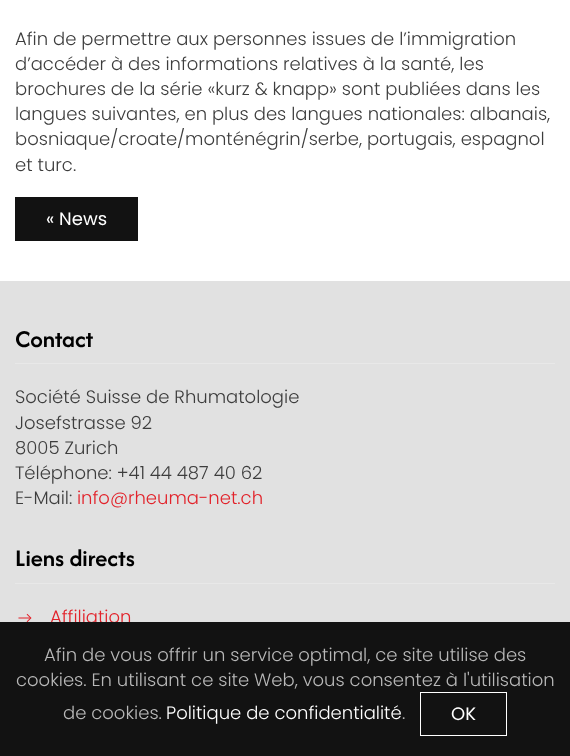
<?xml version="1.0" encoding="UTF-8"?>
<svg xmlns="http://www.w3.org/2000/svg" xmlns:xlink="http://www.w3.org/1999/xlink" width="570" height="756">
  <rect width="100%" height="100%" fill="#ffffff" />
  <rect x="15" y="197" width="123" height="44" fill="#121212" />
  <rect y="281" width="570" height="341" fill="#e1e1e1" />
  <rect x="15" y="363" width="540" height="1" fill="#e8e8e8" />
  <rect x="15" y="583" width="540" height="1" fill="#e8e8e8" />
  <image x="18" y="613" width="14" height="9" xlink:href="image1.png" />
  <text x="15" y="45" style="font-family: Poppins; font-size: 18px; font-weight: 300; fill: #3d3d3d">Afin de permettre aux personnes issues de l’immigration</text>
  <text x="15" y="70" style="font-family: Poppins; font-size: 18px; font-weight: 300; fill: #3d3d3d">d’accéder à des informations relatives à la santé, les</text>
  <text x="15" y="95" style="font-family: Poppins; font-size: 18px; font-weight: 300; fill: #3d3d3d">brochures de la série «kurz &amp; knapp» sont publiées dans les</text>
  <text x="15" y="120" style="font-family: Poppins; font-size: 18px; font-weight: 300; fill: #3d3d3d">langues suivantes, en plus des langues nationales: albanais,</text>
  <text x="15" y="145" style="font-family: Poppins; font-size: 18px; font-weight: 300; fill: #3d3d3d">bosniaque/croate/monténégrin/serbe, portugais, espagnol</text>
  <text x="15" y="171" style="font-family: Poppins; font-size: 18px; font-weight: 300; fill: #3d3d3d">et turc.</text>
  <text x="46" y="225" style="font-family: Poppins; font-size: 18px; fill: #ffffff">« News</text>
  <text x="15" y="347" style="font-family: Afacad Flux; font-size: 25px; font-weight: 600; fill: #000000">Contact</text>
  <text x="15" y="403" style="font-family: Poppins; font-size: 18px; font-weight: 300; fill: #3d3d3d">Société Suisse de Rhumatologie</text>
  <text x="15" y="429" style="font-family: Poppins; font-size: 18px; font-weight: 300; fill: #3d3d3d">Josefstrasse 92</text>
  <text x="15" y="454" style="font-family: Poppins; font-size: 18px; font-weight: 300; fill: #3d3d3d">8005 Zurich</text>
  <text x="15" y="479" style="font-family: Poppins; font-size: 18px; font-weight: 300; fill: #3d3d3d">Téléphone: +41 44 487 40 62</text>
  <text x="15" y="504" style="font-family: Poppins; font-size: 18px; font-weight: 300; fill: #3d3d3d">E-Mail:</text>
  <text x="77" y="504" style="font-family: Poppins; font-size: 18px; font-weight: 300; fill: #e2222a">info@rheuma-net.ch</text>
  <text x="15" y="566" style="font-family: Afacad Flux; font-size: 25px; font-weight: 600; fill: #000000">Liens directs</text>
  <text x="50" y="623" style="font-family: Poppins; font-size: 18px; font-weight: 300; fill: #e2222a">Affiliation</text>
  <rect y="622" width="570" height="134" fill="#121212" />
  <text x="44" y="661" style="font-family: Poppins; font-size: 18px; font-weight: 300; fill: #b8b8b8">Afin de vous offrir un service optimal, ce site utilise des</text>
  <text x="16" y="686" style="font-family: Poppins; font-size: 18px; font-weight: 300; fill: #b8b8b8">cookies. En utilisant ce site Web, vous consentez à l'utilisation</text>
  <text x="63" y="719" style="font-family: Poppins; font-size: 18px; font-weight: 300; fill: #b8b8b8">de cookies.</text>
  <text x="166" y="719" style="font-family: Poppins; font-size: 18px; font-weight: 300; fill: #ffffff">Politique de confidentialité</text>
  <text x="402" y="719" style="font-family: Poppins; font-size: 18px; font-weight: 300; fill: #b8b8b8">.</text>
  <rect x="420.5" y="692.5" width="86" height="43" fill="none" stroke="#ffffff" />
  <text x="451" y="720" style="font-family: Poppins; font-size: 18px; fill: #ffffff">OK</text>
</svg>
